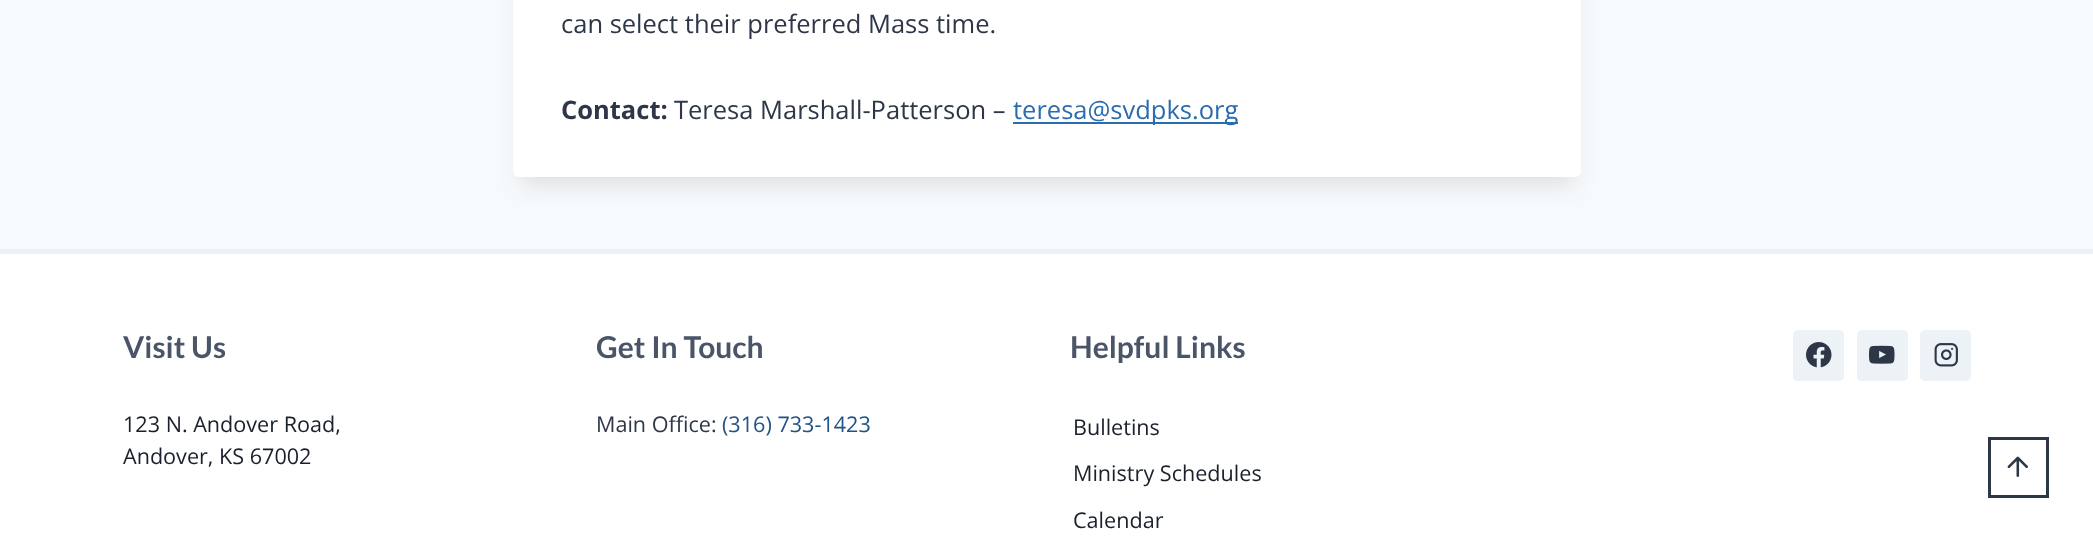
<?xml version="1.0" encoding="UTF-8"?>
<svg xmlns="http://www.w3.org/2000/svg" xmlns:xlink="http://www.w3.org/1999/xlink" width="2093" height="542">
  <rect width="100%" height="100%" fill="#f7fafc" />
  <rect x="521" y="-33" width="1053" height="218" fill="#000000" fill-opacity="0.1" filter="blur(11px)" />
  <rect x="513" y="-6" width="1068" height="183" rx="6" fill="#ffffff" />
  <rect x="1013" y="122" width="225" height="2" fill="#2b6cb0" />
  <rect y="254" width="2093" height="288" fill="#ffffff" />
  <rect y="249" width="2093" height="5" fill="#edf2f7" />
  <rect x="1793" y="330" width="51" height="51" rx="5" fill="#edf2f7" />
  <image x="1806" y="342" width="26" height="26" xlink:href="image1.png" />
  <rect x="1857" y="330" width="51" height="51" rx="5" fill="#edf2f7" />
  <image x="1869" y="345" width="26" height="19" xlink:href="image2.png" />
  <rect x="1920" y="330" width="51" height="51" rx="5" fill="#edf2f7" />
  <image x="1934" y="343" width="24" height="24" xlink:href="image3.png" />
  <rect x="1989.5" y="438.5" width="58" height="58" fill="none" stroke="#2d3748" stroke-width="3" />
  <image x="2007" y="456" width="21" height="21" xlink:href="image4.png" />
  <text x="561" y="33" style="font-family: Open Sans; font-size: 25.5px; fill: #2d3748">can select their preferred Mass time.</text>
  <text x="561" y="119" style="font-family: Open Sans; font-size: 25.5px; font-weight: bold; fill: #2d3748">Contact:</text>
  <text x="674" y="119" style="font-family: Open Sans; font-size: 25.5px; fill: #2d3748">Teresa Marshall-Patterson –</text>
  <text x="1013" y="119" style="font-family: Open Sans; font-size: 25.5px; fill: #2b6cb0">teresa@svdpks.org</text>
  <text x="123" y="358" style="font-family: Lato; font-size: 30px; font-weight: bold; fill: #4a5568">Visit Us</text>
  <text x="123" y="432" style="font-family: Open Sans; font-size: 21.6px; fill: #1a202c">123 N. Andover Road,</text>
  <text x="123" y="464" style="font-family: Open Sans; font-size: 21.6px; fill: #1a202c">Andover, KS 67002</text>
  <text x="596" y="358" style="font-family: Lato; font-size: 30px; font-weight: bold; fill: #4a5568">Get In Touch</text>
  <text x="596" y="432" style="font-family: Open Sans; font-size: 21.6px; fill: #2d3748">Main Office:</text>
  <text x="722" y="432" style="font-family: Open Sans; font-size: 21.6px; fill: #215387">(316) 733-1423</text>
  <text x="1070" y="358" style="font-family: Lato; font-size: 30px; font-weight: bold; fill: #4a5568">Helpful Links</text>
  <text x="1073" y="435" style="font-family: Open Sans; font-size: 21.6px; fill: #1a202c">Bulletins</text>
  <text x="1073" y="481" style="font-family: Open Sans; font-size: 21.6px; fill: #1a202c">Ministry Schedules</text>
  <text x="1073" y="528" style="font-family: Open Sans; font-size: 21.6px; fill: #1a202c">Calendar</text>
</svg>
